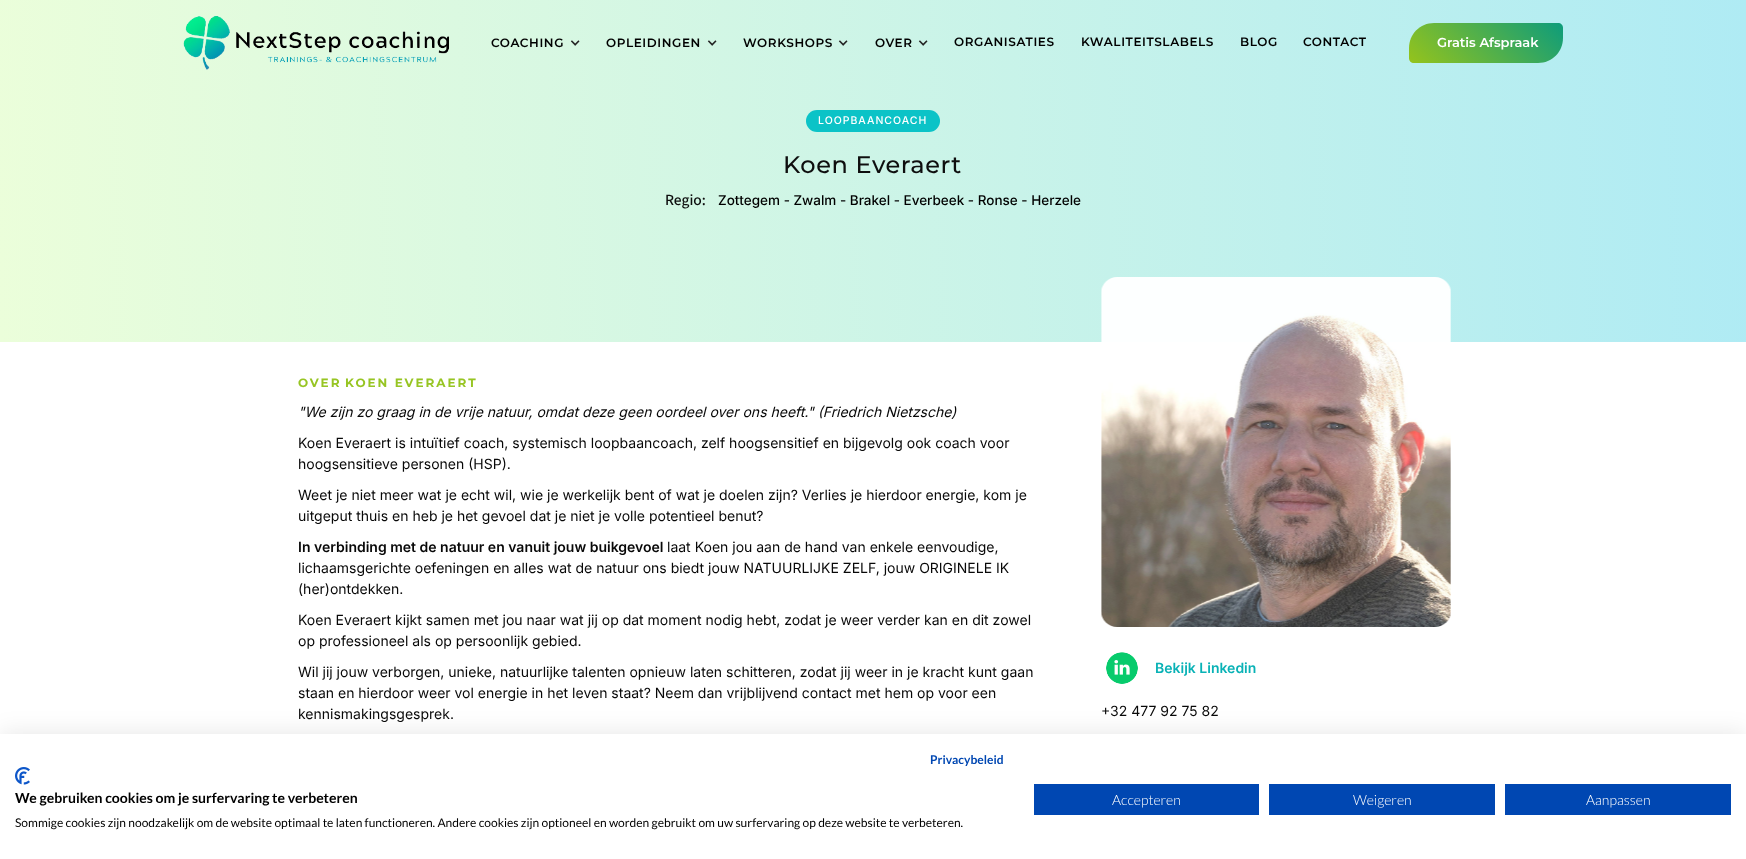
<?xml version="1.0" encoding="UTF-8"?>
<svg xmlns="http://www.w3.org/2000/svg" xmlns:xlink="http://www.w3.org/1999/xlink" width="1746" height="859">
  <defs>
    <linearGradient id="g1" gradientUnits="userSpaceOnUse" x1="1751" y1="140" x2="-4.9" y2="202"><stop offset="0" stop-color="#afebf4" /><stop offset="1" stop-color="#ebfeda" /></linearGradient>
    <linearGradient id="g2" gradientUnits="userSpaceOnUse" x1="1535" y1="-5.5" x2="1438" y2="92"><stop offset="0" stop-color="#0d9c7b" /><stop offset="0.99" stop-color="#94c31c" /><stop offset="1" stop-color="#52ee62" /></linearGradient>
  </defs>
  <rect width="100%" height="100%" fill="#ffffff" />
  <rect width="1746" height="342" fill="url(#g1)" />
  <image x="183" y="16" width="266" height="54" xlink:href="image1.png" />
  <image x="570" y="40" width="10" height="6" xlink:href="image2.png" />
  <image x="707" y="40" width="10" height="6" xlink:href="image3.png" />
  <image x="838" y="40" width="10" height="6" xlink:href="image4.png" />
  <image x="918" y="40" width="10" height="6" xlink:href="image5.png" />
  <path d="M 1434 23 h 124 c 3 0 5 2 5 5 v 10 c 0 14 -11 25 -25 25 h -124 c -3 0 -5 -2 -5 -5 v -10 c 0 -14 11 -25 25 -25 z" fill="url(#g2)" />
  <rect x="806" y="110" width="134" height="22" rx="11" fill="#0bc3c7" />
  <image x="1101" y="277" width="350" height="350" xlink:href="image6.png" />
  <image x="1106" y="652" width="32" height="32" xlink:href="image7.png" />
  <rect y="734" width="1746" height="125" fill="#000000" fill-opacity="0.1" filter="blur(12px)" />
  <rect y="734" width="1746" height="125" fill="#ffffff" />
  <image x="15" y="767" width="15" height="18" xlink:href="image8.png" />
  <rect x="1034" y="784" width="225" height="31" fill="#0047b2" />
  <rect x="1269" y="784" width="226" height="31" fill="#0047b2" />
  <rect x="1505" y="784" width="226" height="31" fill="#0047b2" />
  <text x="491" y="47" style="font-family: Montserrat; font-size: 12px; font-weight: 600; letter-spacing: 0.6px; fill: #000000">COACHING</text>
  <text x="606" y="47" style="font-family: Montserrat; font-size: 12px; font-weight: 600; letter-spacing: 0.6px; fill: #000000">OPLEIDINGEN</text>
  <text x="743" y="47" style="font-family: Montserrat; font-size: 12px; font-weight: 600; letter-spacing: 0.6px; fill: #000000">WORKSHOPS</text>
  <text x="875" y="47" style="font-family: Montserrat; font-size: 12px; font-weight: 600; letter-spacing: 0.6px; fill: #000000">OVER</text>
  <text x="954" y="46" style="font-family: Montserrat; font-size: 12px; font-weight: 600; letter-spacing: 0.6px; fill: #000000">ORGANISATIES</text>
  <text x="1081" y="46" style="font-family: Montserrat; font-size: 12px; font-weight: 600; letter-spacing: 0.6px; fill: #000000">KWALITEITSLABELS</text>
  <text x="1240" y="46" style="font-family: Montserrat; font-size: 12px; font-weight: 600; letter-spacing: 0.6px; fill: #000000">BLOG</text>
  <text x="1303" y="46" style="font-family: Montserrat; font-size: 12px; font-weight: 600; letter-spacing: 0.6px; fill: #000000">CONTACT</text>
  <text x="1437" y="47" style="font-family: Montserrat; font-size: 13px; font-weight: 600; fill: #ffffff">Gratis Afspraak</text>
  <text x="818" y="124" style="font-family: Inter; font-size: 10.5px; font-weight: 500; letter-spacing: 1px; fill: #ffffff">LOOPBAANCOACH</text>
  <text x="783" y="173" style="font-family: Montserrat; font-size: 24px; font-weight: 500; letter-spacing: 0.6px; fill: #0e0e0e">Koen Everaert</text>
  <text x="665" y="205" style="font-family: 'Source Sans 3'; font-size: 15.5px; font-weight: 500; fill: #0e0e0e">Regio:</text>
  <text x="718" y="205" style="font-family: Inter; font-size: 13.5px; font-weight: 500; fill: #000000">Zottegem - Zwalm - Brakel - Everbeek - Ronse - Herzele</text>
  <text x="298" y="387" style="font-family: Montserrat; font-size: 12px; font-weight: bold; letter-spacing: 2px; fill: #97c523">OVER</text>
  <text x="345" y="387" style="font-family: Montserrat; font-size: 12px; font-weight: bold; letter-spacing: 2px; fill: #97c523">KOEN EVERAERT</text>
  <text x="298" y="417" style="font-family: Inter; font-size: 14px; font-style: italic; fill: #080808">"We zijn zo graag in de vrije natuur, omdat deze geen oordeel over ons heeft." (Friedrich Nietzsche)</text>
  <text x="298" y="448" style="font-family: Inter; font-size: 14px; fill: #080808">Koen Everaert is intuïtief coach, systemisch loopbaancoach, zelf hoogsensitief en bijgevolg ook coach voor</text>
  <text x="298" y="469" style="font-family: Inter; font-size: 14px; fill: #080808">hoogsensitieve personen (HSP).</text>
  <text x="298" y="500" style="font-family: Inter; font-size: 14px; fill: #080808">Weet je niet meer wat je echt wil, wie je werkelijk bent of wat je doelen zijn? Verlies je hierdoor energie, kom je</text>
  <text x="298" y="521" style="font-family: Inter; font-size: 14px; fill: #080808">uitgeput thuis en heb je het gevoel dat je niet je volle potentieel benut?</text>
  <text x="298" y="552" style="font-family: Inter; font-size: 14px; font-weight: 600; fill: #080808">In verbinding met de natuur en vanuit jouw buikgevoel</text>
  <text x="667" y="552" style="font-family: Inter; font-size: 14px; fill: #080808">laat Koen jou aan de hand van enkele eenvoudige,</text>
  <text x="298" y="573" style="font-family: Inter; font-size: 14px; fill: #080808">lichaamsgerichte oefeningen en alles wat de natuur ons biedt jouw NATUURLIJKE ZELF, jouw ORIGINELE IK</text>
  <text x="298" y="594" style="font-family: Inter; font-size: 14px; fill: #080808">(her)ontdekken.</text>
  <text x="298" y="625" style="font-family: Inter; font-size: 14px; fill: #080808">Koen Everaert kijkt samen met jou naar wat jij op dat moment nodig hebt, zodat je weer verder kan en dit zowel</text>
  <text x="298" y="646" style="font-family: Inter; font-size: 14px; fill: #080808">op professioneel als op persoonlijk gebied.</text>
  <text x="298" y="677" style="font-family: Inter; font-size: 14px; fill: #080808">Wil jij jouw verborgen, unieke, natuurlijke talenten opnieuw laten schitteren, zodat jij weer in je kracht kunt gaan</text>
  <text x="298" y="698" style="font-family: Inter; font-size: 14px; fill: #080808">staan en hierdoor weer vol energie in het leven staat? Neem dan vrijblijvend contact met hem op voor een</text>
  <text x="298" y="719" style="font-family: Inter; font-size: 14px; fill: #080808">kennismakingsgesprek.</text>
  <text x="1155" y="673" style="font-family: Inter; font-size: 14px; font-weight: 600; fill: #09b2b6">Bekijk Linkedin</text>
  <text x="1101" y="716" style="font-family: Inter; font-size: 14px; fill: #080808">+32 477 92 75 82</text>
  <text x="930" y="764" style="font-family: Lato; font-size: 12px; font-weight: bold; fill: #0047b2">Privacybeleid</text>
  <text x="15" y="803" style="font-family: Lato; font-size: 14px; font-weight: bold; fill: #000000">We gebruiken cookies om je surfervaring te verbeteren</text>
  <text x="15" y="827" style="font-family: Lato; font-size: 12px; fill: #000000">Sommige cookies zijn noodzakelijk om de website optimaal te laten functioneren. Andere cookies zijn optioneel en worden gebruikt om uw surfervaring op deze website te verbeteren.</text>
  <text x="1112" y="805" style="font-family: Lato; font-size: 14px; font-weight: 300; fill: #ffffff">Accepteren</text>
  <text x="1353" y="805" style="font-family: Lato; font-size: 14px; font-weight: 300; fill: #ffffff">Weigeren</text>
  <text x="1586" y="805" style="font-family: Lato; font-size: 14px; font-weight: 300; fill: #ffffff">Aanpassen</text>
</svg>
